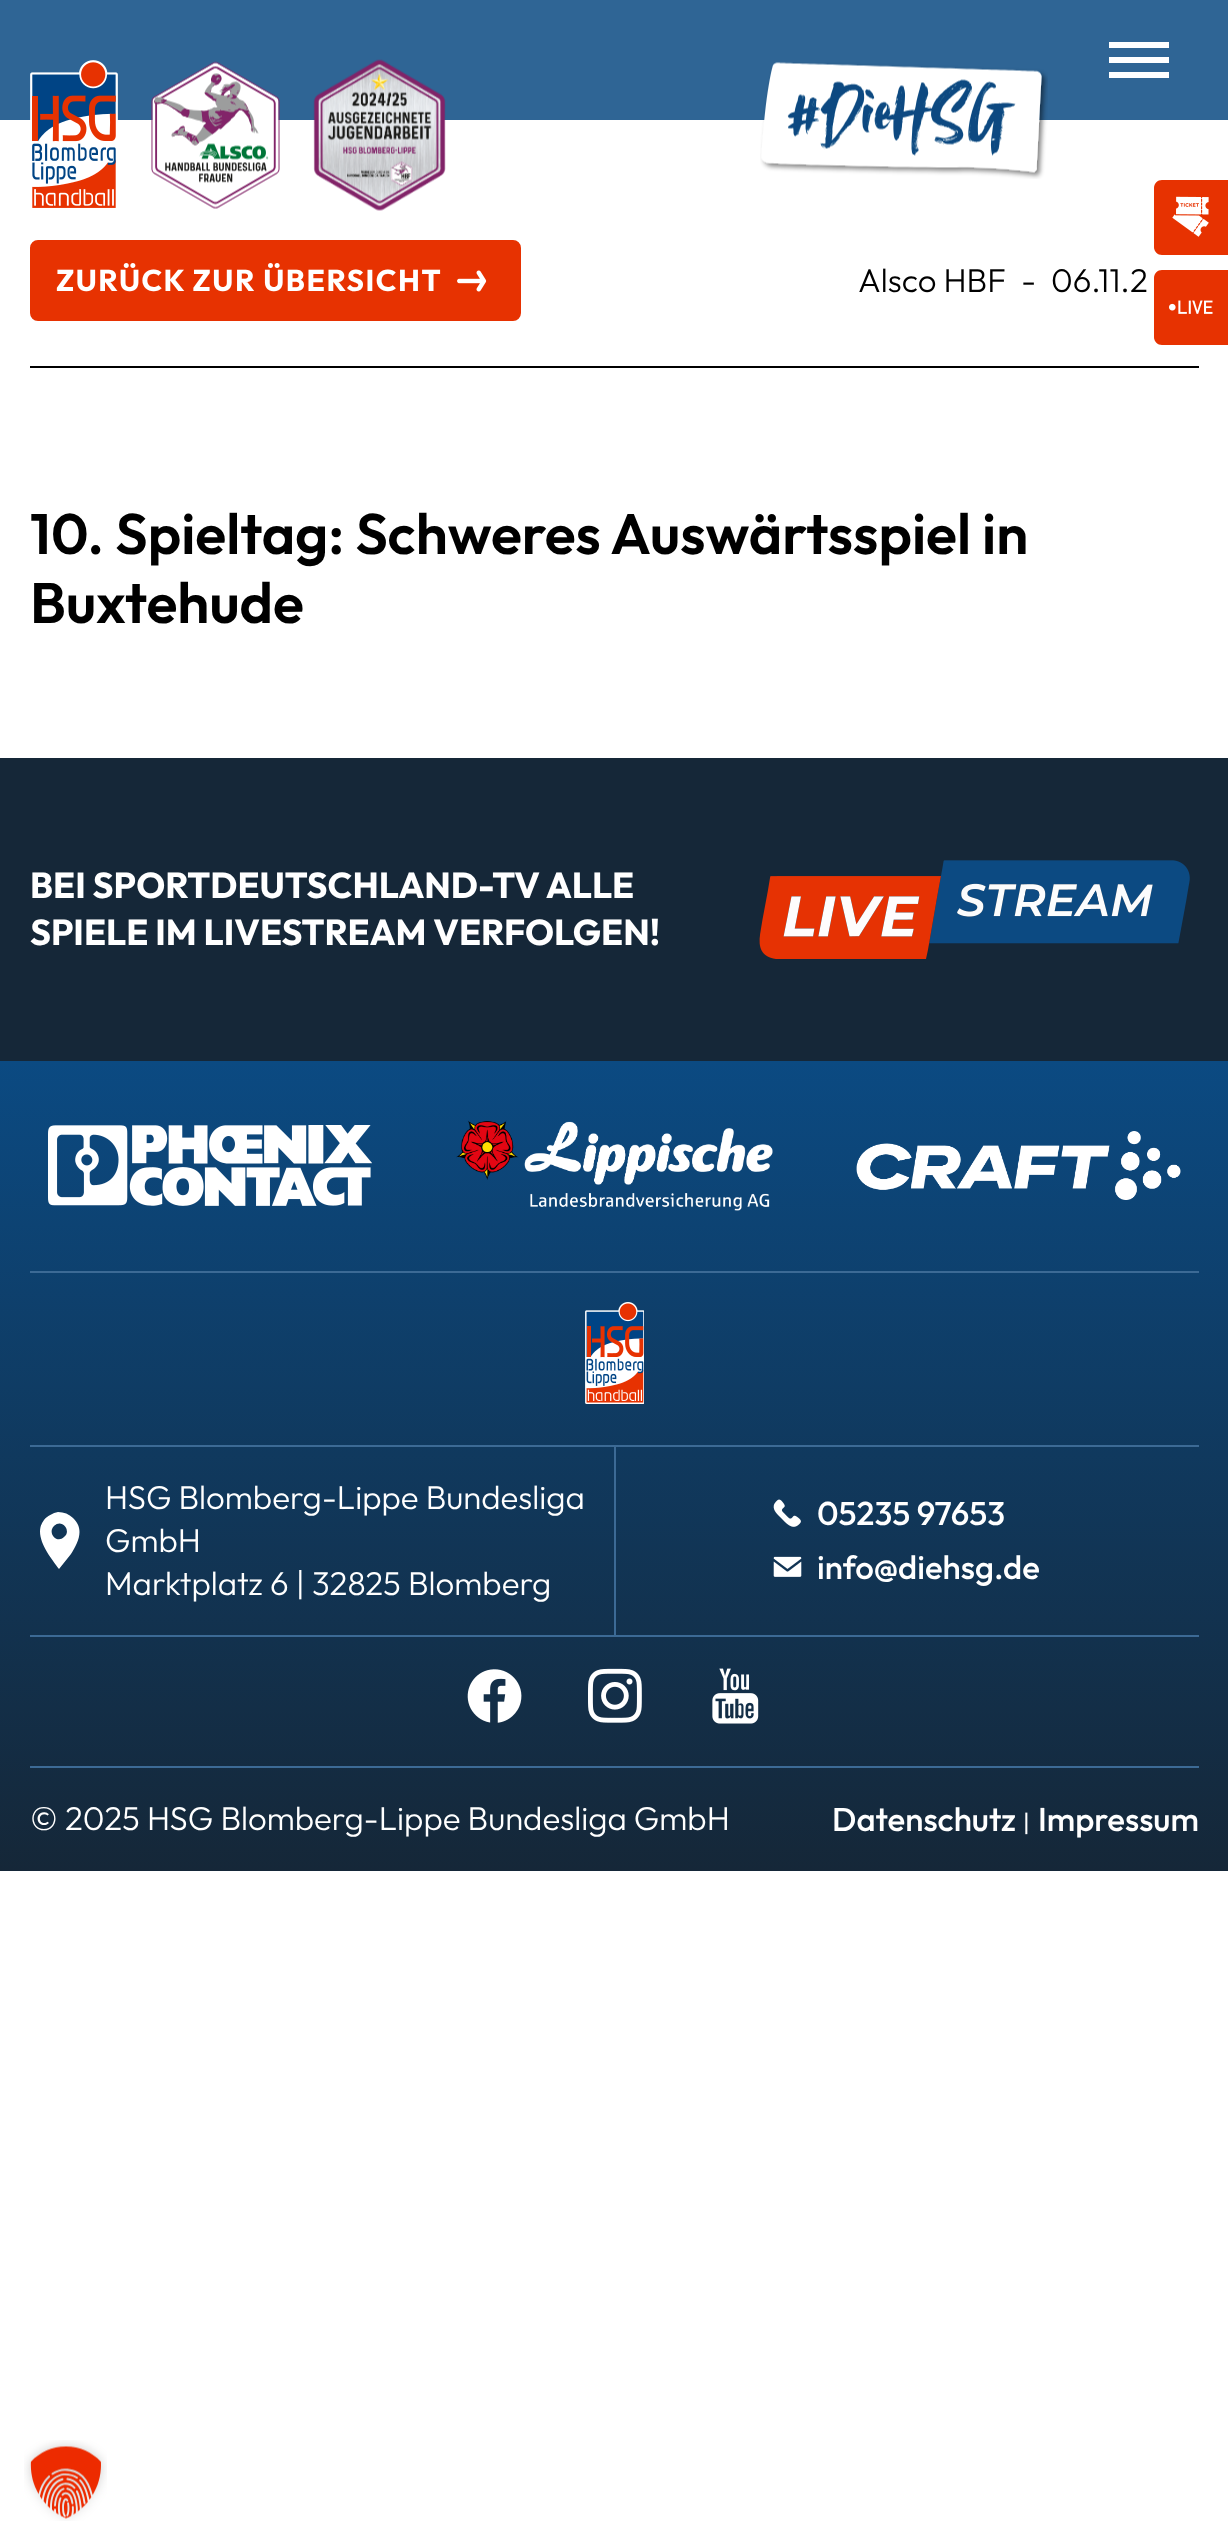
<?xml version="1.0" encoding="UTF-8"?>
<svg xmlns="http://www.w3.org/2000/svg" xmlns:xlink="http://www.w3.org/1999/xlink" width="1228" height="2548">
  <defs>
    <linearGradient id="g1" gradientUnits="userSpaceOnUse" x1="614" y1="1061" x2="614" y2="1871"><stop offset="0" stop-color="#0b4a82" /><stop offset="1" stop-color="#152738" /></linearGradient>
  </defs>
  <rect width="100%" height="100%" fill="#ffffff" />
  <rect width="1228" height="120" fill="#2f6595" />
  <image x="30" y="60" width="88" height="148" xlink:href="image1.png" />
  <image x="151" y="61" width="129" height="148" xlink:href="image2.png" />
  <image x="313" y="59" width="133" height="152" xlink:href="image3.png" />
  <image x="760" y="62" width="288" height="117" xlink:href="image4.png" />
  <rect x="1109" y="42" width="60" height="6" fill="#ffffff" />
  <rect x="1109" y="57" width="60" height="6" fill="#ffffff" />
  <rect x="1109" y="72" width="60" height="6" fill="#ffffff" />
  <rect x="30" y="366" width="1169" height="2" fill="#000000" />
  <rect x="31.5" y="241.5" width="488" height="78" rx="6.5" fill="#e73201" stroke="#e73201" stroke-width="3" />
  <image x="457" y="270" width="30" height="22" xlink:href="image5.png" />
  <path d="M 1162 180 h 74 v 75 h -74 c -4.5 0 -8 -3.5 -8 -8 v -59 c 0 -4.5 3.5 -8 8 -8 z" fill="#e73201" />
  <image x="1172" y="196" width="37" height="41" xlink:href="image6.png" />
  <path d="M 1162 270 h 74 v 75 h -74 c -4.5 0 -8 -3.5 -8 -8 v -59 c 0 -4.5 3.5 -8 8 -8 z" fill="#e73201" />
  <image x="1169" y="300" width="44" height="14" xlink:href="image7.png" />
  <rect y="758" width="1228" height="303" fill="#152738" />
  <image x="759" y="860" width="431" height="99" xlink:href="image8.png" />
  <rect y="1061" width="1228" height="810" fill="url(#g1)" />
  <rect x="30" y="1271" width="1169" height="2" fill="#3c6a95" />
  <image x="48" y="1125" width="324" height="81" xlink:href="image9.png" />
  <image x="456" y="1120" width="317" height="91" xlink:href="image10.png" />
  <image x="856" y="1131" width="325" height="69" xlink:href="image11.png" />
  <image x="585" y="1302" width="59" height="102" xlink:href="image12.png" />
  <rect x="30" y="1445" width="585" height="2" fill="#3c6a95" />
  <rect x="614" y="1445" width="2" height="192" fill="#3c6a95" />
  <rect x="30" y="1635" width="1169" height="2" fill="#3c6a95" />
  <path d="M 58 1512 c -5 1 -11 4 -14 8 c -12 15 6 37 15 49 l 12 -15 c 7 -11 14 -25 2 -36 c -4 -4 -9 -6 -15 -6 z m 6 25 c -7 7 -17 -4 -10 -11 c 8 -8 18 5 10 11 z" fill="#ffffff" />
  <rect x="615" y="1445" width="584" height="2" fill="#3c6a95" />
  <image x="773" y="1499" width="28" height="28" xlink:href="image13.png" />
  <image x="773" y="1556" width="29" height="21" xlink:href="image14.png" />
  <image x="467" y="1669" width="55" height="54" xlink:href="image15.png" />
  <image x="588" y="1668" width="54" height="55" xlink:href="image16.png" />
  <image x="712" y="1668" width="47" height="56" xlink:href="image17.png" />
  <rect x="30" y="1766" width="1169" height="2" fill="#3c6a95" />
  <image x="24" y="2440" width="83" height="81" xlink:href="image18.png" />
  <text x="56" y="291" style="font-family: Outfit; font-size: 30px; font-weight: bold; letter-spacing: 1.5px; fill: #ffffff">ZURÜCK ZUR ÜBERSICHT</text>
  <text x="858" y="292" style="font-family: Outfit; font-size: 33px; font-weight: 300; fill: #000000">Alsco HBF</text>
  <text x="1021" y="292" style="font-family: Outfit; font-size: 33px; font-weight: 300; fill: #000000">-</text>
  <text x="1051" y="292" style="font-family: Outfit; font-size: 33px; font-weight: 300; fill: #000000">06.11.2</text>
  <text x="30" y="554" style="font-family: Outfit; font-size: 57px; font-weight: 600; fill: #000000">10. Spieltag: Schweres Auswärtsspiel in</text>
  <text x="30" y="623" style="font-family: Outfit; font-size: 57px; font-weight: 600; fill: #000000">Buxtehude</text>
  <text x="30" y="898" style="font-family: Outfit; font-size: 36px; font-weight: bold; fill: #ffffff">BEI SPORTDEUTSCHLAND-TV ALLE</text>
  <text x="30" y="945" style="font-family: Outfit; font-size: 36px; font-weight: bold; fill: #ffffff">SPIELE IM LIVESTREAM VERFOLGEN!</text>
  <text x="105" y="1509" style="font-family: Outfit; font-size: 33px; font-weight: 300; fill: #ffffff">HSG Blomberg-Lippe Bundesliga</text>
  <text x="105" y="1552" style="font-family: Outfit; font-size: 33px; font-weight: 300; fill: #ffffff">GmbH</text>
  <text x="105" y="1595" style="font-family: Outfit; font-size: 33px; font-weight: 300; fill: #ffffff">Marktplatz 6 | 32825 Blomberg</text>
  <text x="817" y="1525" style="font-family: Outfit; font-size: 33px; font-weight: 500; fill: #ffffff">05235 97653</text>
  <text x="817" y="1579" style="font-family: Outfit; font-size: 33px; font-weight: 500; fill: #ffffff">info@diehsg.de</text>
  <text x="30" y="1830" style="font-family: Outfit; font-size: 33px; font-weight: 300; fill: #ffffff">© 2025 HSG Blomberg-Lippe Bundesliga GmbH</text>
  <text x="832" y="1831" style="font-family: Outfit; font-size: 33px; font-weight: 500; fill: #ffffff">Datenschutz</text>
  <text x="1023" y="1831" style="font-family: Outfit; font-size: 24px; fill: #ffffff">|</text>
  <text x="1038" y="1831" style="font-family: Outfit; font-size: 33px; font-weight: 500; fill: #ffffff">Impressum</text>
</svg>
